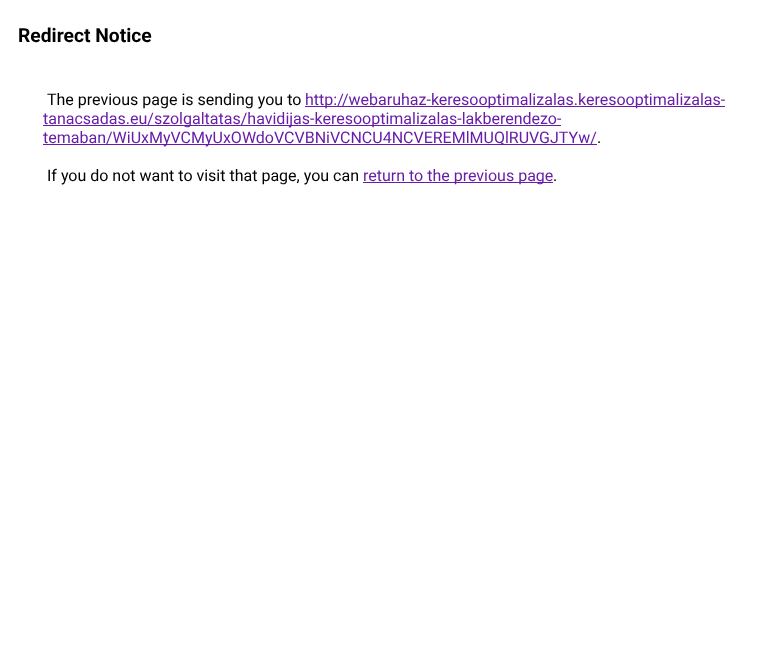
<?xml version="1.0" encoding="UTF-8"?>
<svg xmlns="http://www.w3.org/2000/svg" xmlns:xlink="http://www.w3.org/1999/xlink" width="774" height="650">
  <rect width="100%" height="100%" fill="#ffffff" />
  <rect x="305" y="106" width="420" height="1" fill="#681da8" />
  <rect x="43" y="125" width="518" height="1" fill="#681da8" />
  <rect x="43" y="144" width="554" height="1" fill="#681da8" />
  <rect x="363" y="182" width="190" height="1" fill="#681da8" />
  <text x="18" y="42" style="font-family: Roboto; font-size: 19.25px; font-weight: bold; fill: #000000">Redirect Notice</text>
  <text x="47" y="105" style="font-family: Roboto; font-size: 16px; fill: #000000">The previous page is sending you to</text>
  <text x="305" y="105" style="font-family: Roboto; font-size: 16px; fill: #681da8">http://webaruhaz-keresooptimalizalas.keresooptimalizalas-</text>
  <text x="43" y="124" style="font-family: Roboto; font-size: 16px; fill: #681da8">tanacsadas.eu/szolgaltatas/havidijas-keresooptimalizalas-lakberendezo-</text>
  <text x="43" y="143" style="font-family: Roboto; font-size: 16px; fill: #681da8">temaban/WiUxMyVCMyUxOWdoVCVBNiVCNCU4NCVEREMlMUQlRUVGJTYw/</text>
  <text x="597" y="143" style="font-family: Roboto; font-size: 16px; fill: #000000">.</text>
  <text x="47" y="181" style="font-family: Roboto; font-size: 16px; fill: #000000">If you do not want to visit that page, you can</text>
  <text x="363" y="181" style="font-family: Roboto; font-size: 16px; fill: #681da8">return to the previous page</text>
  <text x="553" y="181" style="font-family: Roboto; font-size: 16px; fill: #000000">.</text>
</svg>
